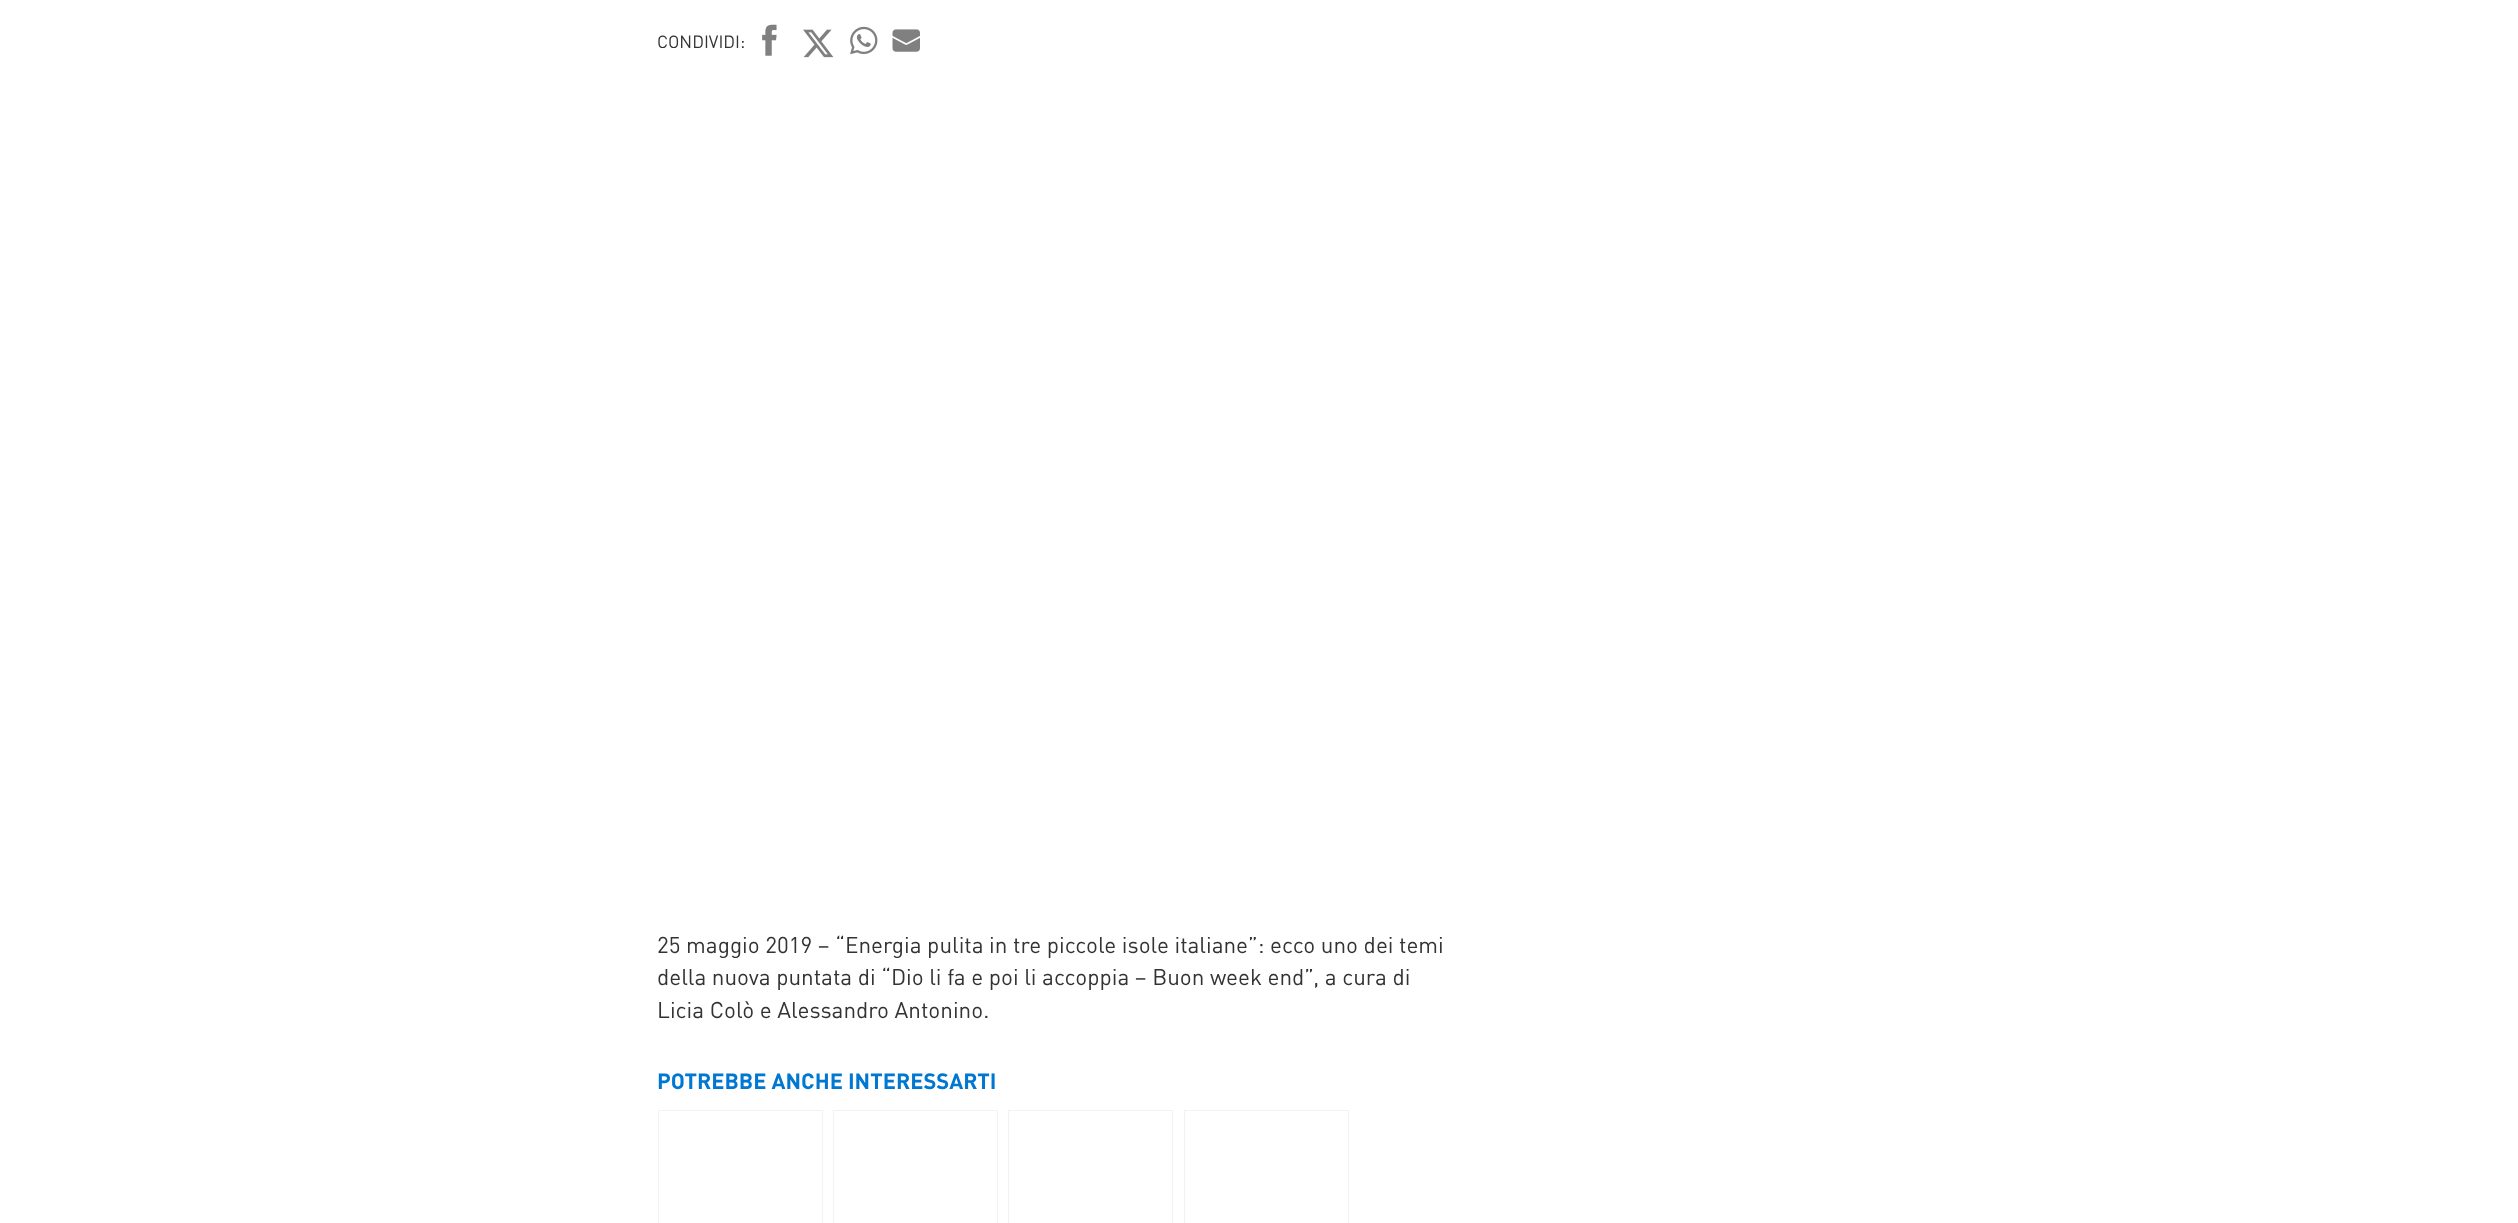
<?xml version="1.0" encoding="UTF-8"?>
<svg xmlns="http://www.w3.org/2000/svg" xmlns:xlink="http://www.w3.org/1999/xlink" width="2518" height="1223">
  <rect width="100%" height="100%" fill="#ffffff" />
  <image x="762" y="24" width="15" height="32" xlink:href="image1.png" />
  <image x="803" y="29" width="31" height="29" xlink:href="image2.png" />
  <image x="850" y="26" width="28" height="29" xlink:href="image3.png" />
  <image x="892" y="29" width="28" height="23" xlink:href="image4.png" />
  <rect x="658.5" y="1110.5" width="164" height="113" fill="none" stroke="#f2f2f2" />
  <rect x="833.5" y="1110.5" width="164" height="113" fill="none" stroke="#f2f2f2" />
  <rect x="1008.5" y="1110.5" width="164" height="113" fill="none" stroke="#f2f2f2" />
  <rect x="1184.5" y="1110.5" width="164" height="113" fill="none" stroke="#f2f2f2" />
  <text x="657" y="48" style="font-family: DIN; font-size: 17.5px; fill: #333333">CONDIVIDI:</text>
  <text x="657" y="953" style="font-family: DIN; font-size: 22.5px; fill: #333333">25 maggio 2019 – “Energia pulita in tre piccole isole italiane”: ecco uno dei temi</text>
  <text x="657" y="985" style="font-family: DIN; font-size: 22.5px; fill: #333333">della nuova puntata di “Dio li fa e poi li accoppia – Buon week end”, a cura di</text>
  <text x="657" y="1018" style="font-family: DIN; font-size: 22.5px; fill: #333333">Licia Colò e Alessandro Antonino.</text>
  <text x="657" y="1089" style="font-family: DIN; font-size: 21.9px; font-weight: bold; fill: #0077d1">POTREBBE ANCHE INTERESSARTI</text>
</svg>
